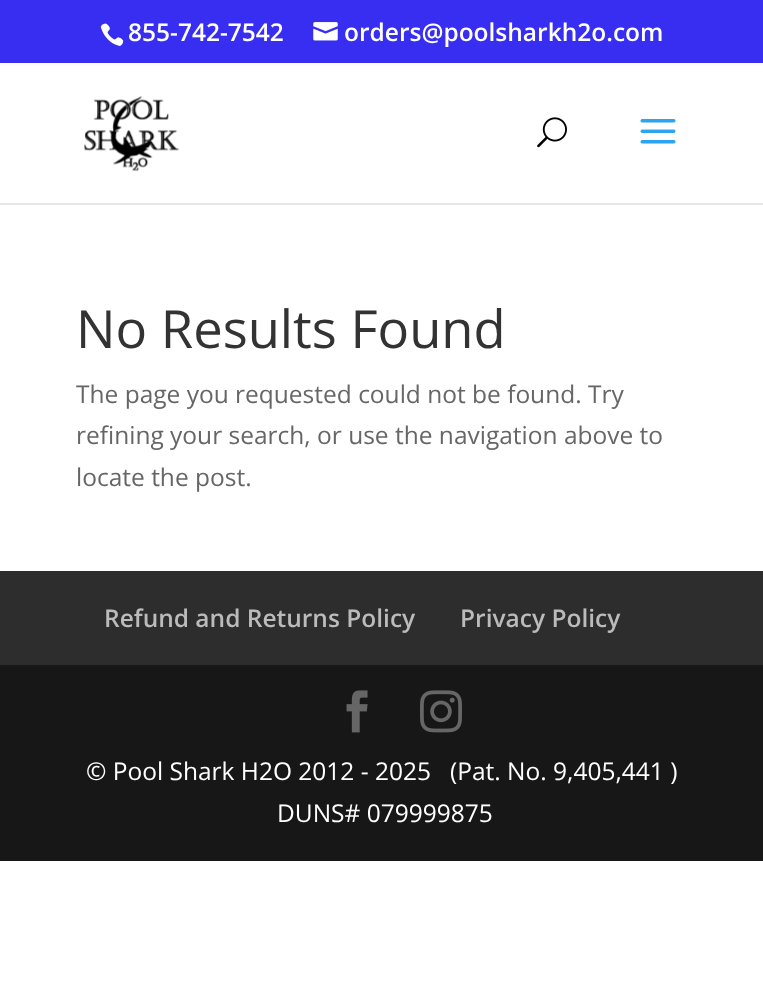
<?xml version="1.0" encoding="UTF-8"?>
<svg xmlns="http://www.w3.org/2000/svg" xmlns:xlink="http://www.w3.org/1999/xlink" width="763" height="983">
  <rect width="100%" height="100%" fill="#ffffff" />
  <rect width="763" height="63" fill="#372ef2" />
  <image x="100" y="23" width="24" height="23" xlink:href="image1.png" />
  <image x="313" y="22" width="25" height="19" xlink:href="image2.png" />
  <rect y="203" width="763" height="2" fill="#e6e6e6" />
  <image x="84" y="96" width="96" height="76" xlink:href="image3.png" />
  <image x="537" y="117" width="30" height="31" xlink:href="image4.png" />
  <image x="640" y="119" width="36" height="25" xlink:href="image5.png" />
  <rect y="571" width="763" height="94" fill="#2d2d2d" />
  <rect y="665" width="763" height="196" fill="#171717" />
  <image x="346" y="690" width="22" height="43" xlink:href="image6.png" />
  <image x="420" y="690" width="42" height="43" xlink:href="image7.png" />
  <text x="128" y="41" style="font-family: Open Sans; font-size: 24.5px; font-weight: 600; fill: #ffffff">855-742-7542</text>
  <text x="344" y="41" style="font-family: Open Sans; font-size: 24.5px; font-weight: 600; fill: #ffffff">orders@poolsharkh2o.com</text>
  <text x="76" y="348" style="font-family: Open Sans; font-size: 52.5px; fill: #333333">No Results Found</text>
  <text x="76" y="403" style="font-family: Open Sans; font-size: 24.5px; fill: #666666">The page you requested could not be found. Try</text>
  <text x="76" y="444" style="font-family: Open Sans; font-size: 24.5px; fill: #666666">refining your search, or use the navigation above to</text>
  <text x="76" y="486" style="font-family: Open Sans; font-size: 24.5px; fill: #666666">locate the post.</text>
  <text x="104" y="627" style="font-family: Open Sans; font-size: 24.5px; font-weight: 600; fill: #bbbbbb">Refund and Returns Policy</text>
  <text x="460" y="627" style="font-family: Open Sans; font-size: 24.5px; font-weight: 600; fill: #bbbbbb">Privacy Policy</text>
  <text x="86" y="780" style="font-family: Open Sans; font-size: 24.5px; fill: #ffffff">© Pool Shark H2O 2012 - 2025</text>
  <text x="450" y="780" style="font-family: Open Sans; font-size: 24.5px; fill: #ffffff">(Pat. No. 9,405,441 )</text>
  <text x="277" y="822" style="font-family: Open Sans; font-size: 24.5px; fill: #ffffff">DUNS# 079999875</text>
</svg>
